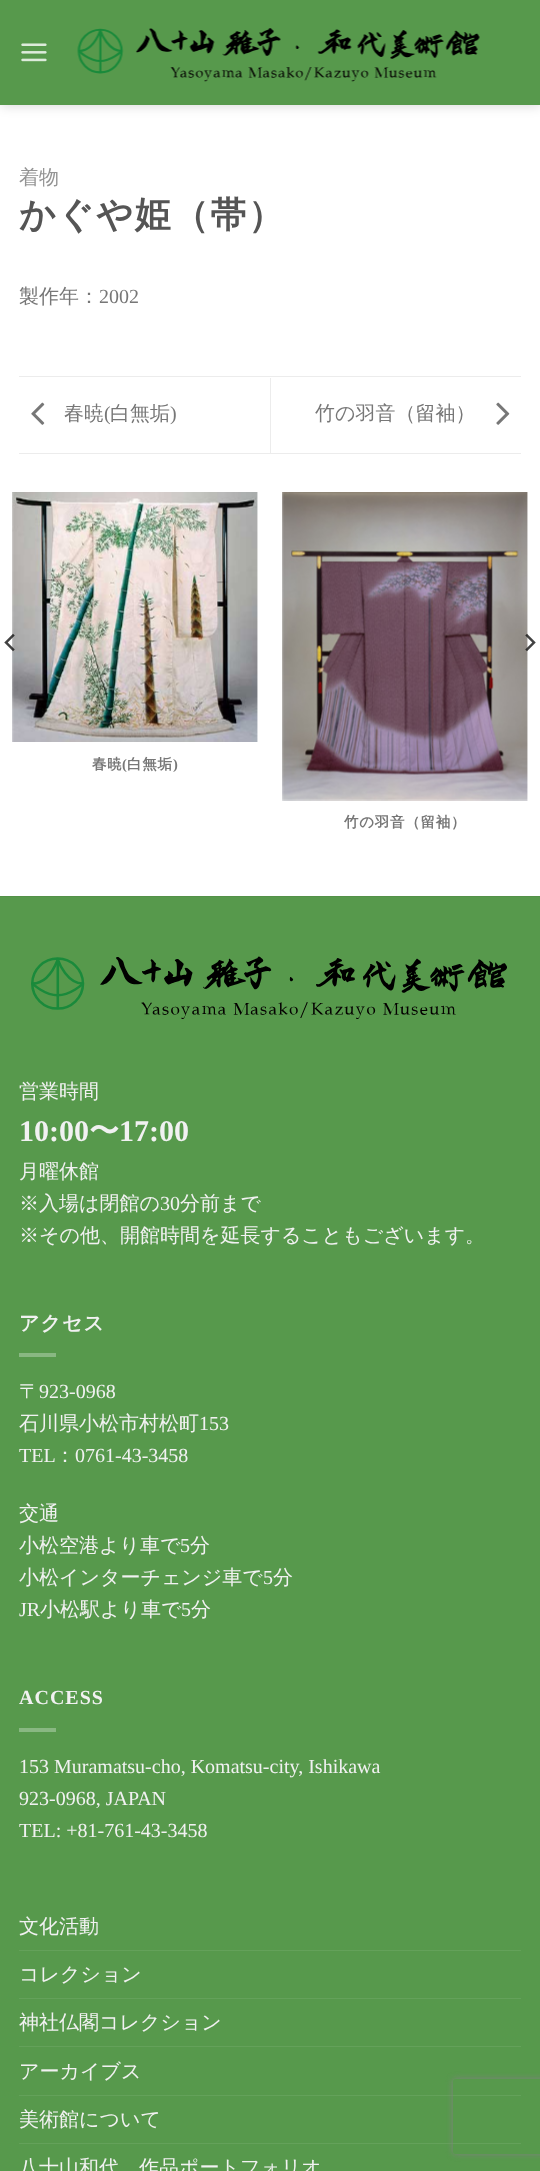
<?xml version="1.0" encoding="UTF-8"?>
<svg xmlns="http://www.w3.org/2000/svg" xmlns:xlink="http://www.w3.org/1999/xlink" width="540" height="2171">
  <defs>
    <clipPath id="clip1"><path d="M 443 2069 h 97 v 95 h -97 z m 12.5 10 h 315 c 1.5 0 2.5 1 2.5 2.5 v 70 c 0 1.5 -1 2.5 -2.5 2.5 h -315 c -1.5 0 -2.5 -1 -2.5 -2.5 v -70 c 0 -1.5 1 -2.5 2.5 -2.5 z" clip-rule="evenodd" /></clipPath>
  </defs>
  <rect width="100%" height="100%" fill="#ffffff" />
  <rect x="1" y="1" width="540" height="105" fill="#000000" fill-opacity="0.15" filter="blur(6px)" />
  <rect width="540" height="105" fill="#57994c" />
  <image x="21" y="43" width="26" height="19" xlink:href="image1.png" />
  <image x="77" y="28" width="403" height="54" xlink:href="image2.png" />
  <rect x="19" y="376" width="502" height="1" fill="#ececec" />
  <rect x="19" y="453" width="502" height="1" fill="#ececec" />
  <image x="31" y="402" width="14" height="23" xlink:href="image3.png" />
  <rect x="270" y="378" width="1" height="75" fill="#ececec" />
  <image x="496" y="402" width="14" height="23" xlink:href="image4.png" />
  <image x="12" y="492" width="246" height="250" xlink:href="image7.png" />
  <image x="4" y="633" width="11" height="19" xlink:href="image5.png" />
  <image x="282" y="492" width="246" height="309" xlink:href="image8.png" />
  <image x="525" y="633" width="11" height="19" xlink:href="image6.png" />
  <rect y="897" width="540" height="1274" fill="#57994c" />
  <rect y="896" width="540" height="1" fill="#539148" />
  <image x="31" y="956" width="476" height="63" xlink:href="image9.png" />
  <rect x="19" y="1353" width="37" height="4" fill="#89b882" />
  <rect x="19" y="1728" width="37" height="4" fill="#89b882" />
  <rect x="19" y="1950" width="502" height="1" fill="#64a15a" />
  <rect x="19" y="1998" width="502" height="1" fill="#64a15a" />
  <rect x="19" y="2046" width="502" height="1" fill="#64a15a" />
  <rect x="19" y="2095" width="502" height="1" fill="#64a15a" />
  <rect x="19" y="2143" width="502" height="1" fill="#64a15a" />
  <g clip-path="url(#clip1)">
    <rect x="453" y="2079" width="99" height="75" rx="2.5" fill="#808080" filter="blur(3px)" />
  </g>
  <text x="19" y="184" style="font-family: WenQuanYi Zen Hei; font-size: 20px; font-weight: 500; fill: #949494">着物</text>
  <text x="19" y="227" style="font-family: WenQuanYi Zen Hei; font-size: 36px; font-weight: bold; letter-spacing: 1.75px; fill: #555555">かぐや姫（帯）</text>
  <text x="19" y="303" style="font-family: WenQuanYi Zen Hei; font-size: 20px; font-weight: 500; fill: #777777">製作年：</text>
  <text x="99" y="303" style="font-family: Liberation Serif; font-size: 20px; fill: #777777">2002</text>
  <text x="64" y="420" style="font-family: WenQuanYi Zen Hei; font-size: 20px; font-weight: 500; fill: #777777">春暁</text>
  <text x="104" y="420" style="font-family: Liberation Serif; font-size: 20px; fill: #777777">(</text>
  <text x="110" y="420" style="font-family: WenQuanYi Zen Hei; font-size: 20px; font-weight: 500; fill: #777777">白無垢</text>
  <text x="170" y="420" style="font-family: Liberation Serif; font-size: 20px; fill: #777777">)</text>
  <text x="315" y="420" style="font-family: WenQuanYi Zen Hei; font-size: 20px; font-weight: 500; fill: #777777">竹の羽音（留袖）</text>
  <text x="92" y="769" style="font-family: WenQuanYi Zen Hei; font-size: 14.5px; font-weight: bold; letter-spacing: 0.75px; fill: #777777">春暁</text>
  <text x="122" y="769" style="font-family: Liberation Serif; font-size: 14.5px; font-weight: bold; letter-spacing: 0.75px; fill: #777777">(</text>
  <text x="127" y="769" style="font-family: WenQuanYi Zen Hei; font-size: 14.5px; font-weight: bold; letter-spacing: 0.75px; fill: #777777">白無垢</text>
  <text x="173" y="769" style="font-family: Liberation Serif; font-size: 14.5px; font-weight: bold; letter-spacing: 0.75px; fill: #777777">)</text>
  <text x="344" y="827" style="font-family: WenQuanYi Zen Hei; font-size: 14.5px; font-weight: bold; letter-spacing: 0.75px; fill: #777777">竹の羽音（留袖）</text>
  <text x="19" y="1098" style="font-family: WenQuanYi Zen Hei; font-size: 20px; font-weight: 500; fill: #f1f1f1">営業時間</text>
  <text x="19" y="1141" style="font-family: Liberation Serif; font-size: 30px; font-weight: bold; fill: #f1f1f1">10:00</text>
  <text x="89" y="1141" style="font-family: WenQuanYi Zen Hei; font-size: 30px; font-weight: bold; fill: #f1f1f1">〜</text>
  <text x="119" y="1141" style="font-family: Liberation Serif; font-size: 30px; font-weight: bold; fill: #f1f1f1">17:00</text>
  <text x="19" y="1178" style="font-family: WenQuanYi Zen Hei; font-size: 20px; font-weight: 500; fill: #f1f1f1">月曜休館</text>
  <text x="19" y="1210" style="font-family: WenQuanYi Zen Hei; font-size: 20px; font-weight: 500; fill: #f1f1f1">※入場は閉館の</text>
  <text x="160" y="1210" style="font-family: Liberation Serif; font-size: 20px; fill: #f1f1f1">30</text>
  <text x="180" y="1210" style="font-family: WenQuanYi Zen Hei; font-size: 20px; font-weight: 500; fill: #f1f1f1">分前まで</text>
  <text x="19" y="1242" style="font-family: WenQuanYi Zen Hei; font-size: 20px; font-weight: 500; fill: #f1f1f1">※その他、開館時間を延長することもございます。</text>
  <text x="19" y="1330" style="font-family: WenQuanYi Zen Hei; font-size: 20px; font-weight: bold; letter-spacing: 1px; fill: #f1f1f1">アクセス</text>
  <text x="19" y="1398" style="font-family: WenQuanYi Zen Hei; font-size: 20px; font-weight: 500; fill: #f1f1f1">〒</text>
  <text x="39" y="1398" style="font-family: Liberation Serif; font-size: 20px; fill: #f1f1f1">923-0968</text>
  <text x="19" y="1430" style="font-family: WenQuanYi Zen Hei; font-size: 20px; font-weight: 500; fill: #f1f1f1">石川県小松市村松町</text>
  <text x="199" y="1430" style="font-family: Liberation Serif; font-size: 20px; fill: #f1f1f1">153</text>
  <text x="19" y="1462" style="font-family: Liberation Serif; font-size: 20px; fill: #f1f1f1">TEL</text>
  <text x="55" y="1462" style="font-family: WenQuanYi Zen Hei; font-size: 20px; font-weight: 500; fill: #f1f1f1">：</text>
  <text x="75" y="1462" style="font-family: Liberation Serif; font-size: 20px; fill: #f1f1f1">0761-43-3458</text>
  <text x="19" y="1520" style="font-family: WenQuanYi Zen Hei; font-size: 20px; font-weight: 500; fill: #f1f1f1">交通</text>
  <text x="19" y="1552" style="font-family: WenQuanYi Zen Hei; font-size: 20px; font-weight: 500; fill: #f1f1f1">小松空港より車で</text>
  <text x="180" y="1552" style="font-family: Liberation Serif; font-size: 20px; fill: #f1f1f1">5</text>
  <text x="190" y="1552" style="font-family: WenQuanYi Zen Hei; font-size: 20px; font-weight: 500; fill: #f1f1f1">分</text>
  <text x="19" y="1584" style="font-family: WenQuanYi Zen Hei; font-size: 20px; font-weight: 500; fill: #f1f1f1">小松インターチェンジ車で</text>
  <text x="263" y="1584" style="font-family: Liberation Serif; font-size: 20px; fill: #f1f1f1">5</text>
  <text x="273" y="1584" style="font-family: WenQuanYi Zen Hei; font-size: 20px; font-weight: 500; fill: #f1f1f1">分</text>
  <text x="19" y="1616" style="font-family: Liberation Serif; font-size: 20px; fill: #f1f1f1">JR</text>
  <text x="40" y="1616" style="font-family: WenQuanYi Zen Hei; font-size: 20px; font-weight: 500; fill: #f1f1f1">小松駅より車で</text>
  <text x="181" y="1616" style="font-family: Liberation Serif; font-size: 20px; fill: #f1f1f1">5</text>
  <text x="191" y="1616" style="font-family: WenQuanYi Zen Hei; font-size: 20px; font-weight: 500; fill: #f1f1f1">分</text>
  <text x="19" y="1704" style="font-family: Liberation Serif; font-size: 20px; font-weight: bold; letter-spacing: 1px; fill: #f1f1f1">ACCESS</text>
  <text x="19" y="1773" style="font-family: Liberation Serif; font-size: 20px; fill: #f1f1f1">153 Muramatsu-cho, Komatsu-city, Ishikawa</text>
  <text x="19" y="1805" style="font-family: Liberation Serif; font-size: 20px; fill: #f1f1f1">923-0968, JAPAN</text>
  <text x="19" y="1837" style="font-family: Liberation Serif; font-size: 20px; fill: #f1f1f1">TEL: +81-761-43-3458</text>
  <text x="19" y="1933" style="font-family: WenQuanYi Zen Hei; font-size: 20px; font-weight: 500; fill: #f1f1f1">文化活動</text>
  <text x="19" y="1981" style="font-family: WenQuanYi Zen Hei; font-size: 20px; font-weight: 500; fill: #f1f1f1">コレクション</text>
  <text x="19" y="2029" style="font-family: WenQuanYi Zen Hei; font-size: 20px; font-weight: 500; fill: #f1f1f1">神社仏閣コレクション</text>
  <text x="19" y="2078" style="font-family: WenQuanYi Zen Hei; font-size: 20px; font-weight: 500; fill: #f1f1f1">アーカイブス</text>
  <text x="19" y="2126" style="font-family: WenQuanYi Zen Hei; font-size: 20px; font-weight: 500; fill: #f1f1f1">美術館について</text>
  <text x="19" y="2174" style="font-family: WenQuanYi Zen Hei; font-size: 20px; font-weight: 500; fill: #f1f1f1">八十山和代　作品ポートフォリオ</text>
</svg>
